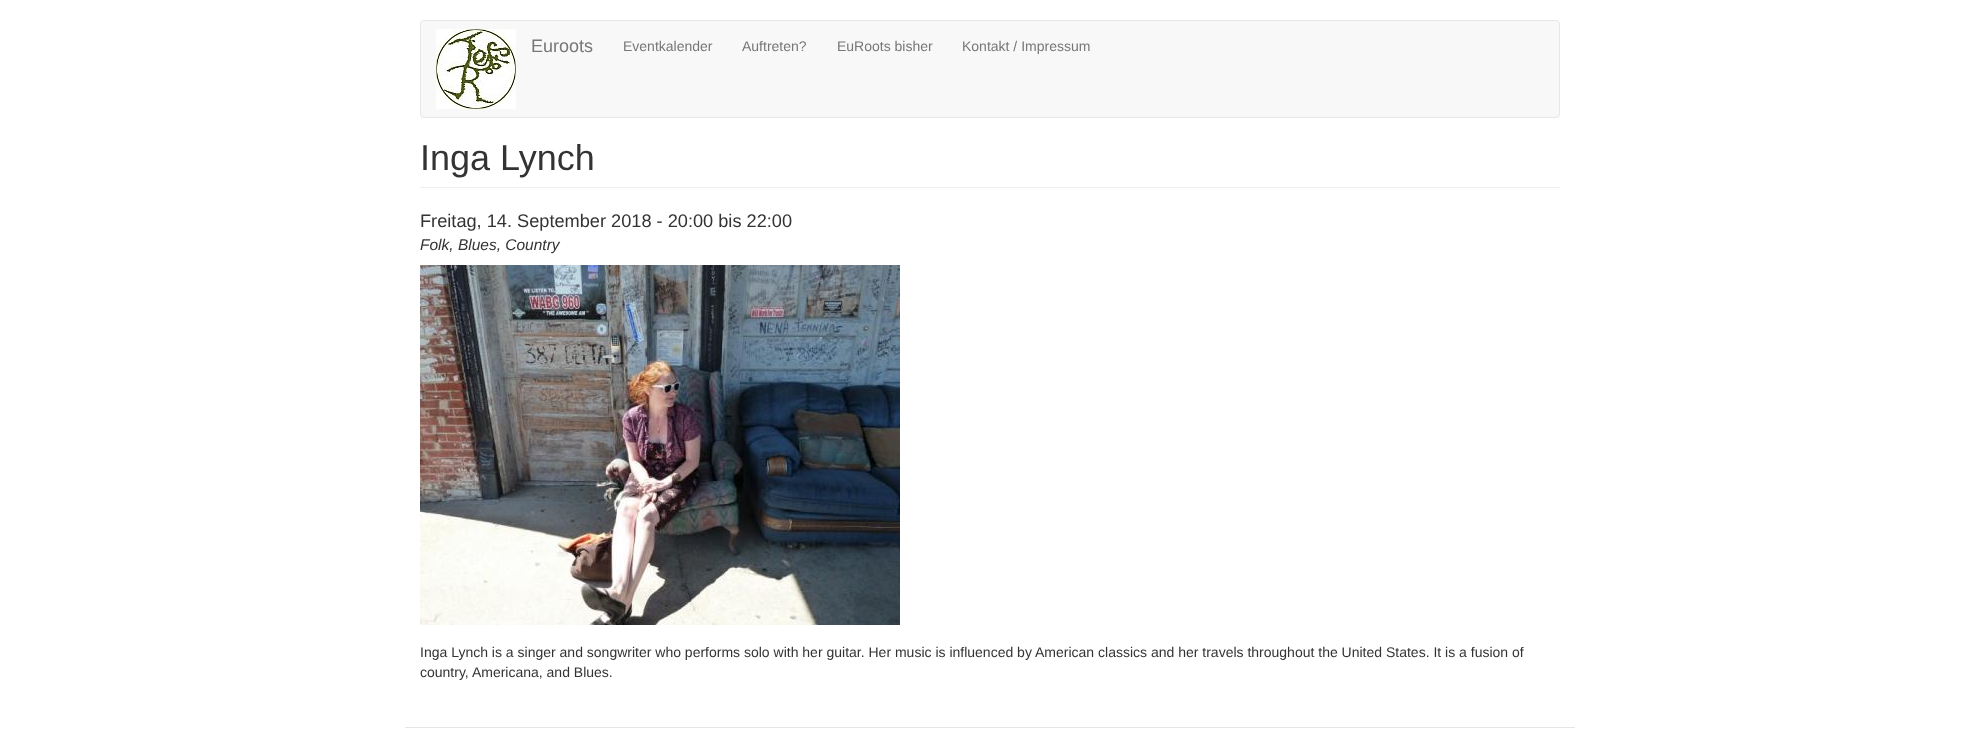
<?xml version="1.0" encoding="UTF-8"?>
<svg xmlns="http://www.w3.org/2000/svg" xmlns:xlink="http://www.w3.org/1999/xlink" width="1979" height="746">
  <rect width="100%" height="100%" fill="#ffffff" />
  <rect x="420.5" y="20.5" width="1139" height="97" rx="3.5" fill="#f8f8f8" stroke="#e7e7e7" />
  <image x="436" y="29" width="80" height="80" xlink:href="image1.png" />
  <rect x="420" y="187" width="1140" height="1" fill="#eeeeee" />
  <image x="420" y="265" width="480" height="360" xlink:href="image2.png" />
  <rect x="405" y="727" width="1170" height="1" fill="#e5e5e5" />
  <text x="531" y="52" style="font-family: Liberation Sans; font-size: 18px; fill: #777777">Euroots</text>
  <text x="623" y="51" style="font-family: Liberation Sans; font-size: 14px; fill: #777777">Eventkalender</text>
  <text x="742" y="51" style="font-family: Liberation Sans; font-size: 14px; fill: #777777">Auftreten?</text>
  <text x="837" y="51" style="font-family: Liberation Sans; font-size: 14px; fill: #777777">EuRoots bisher</text>
  <text x="962" y="51" style="font-family: Liberation Sans; font-size: 14px; fill: #777777">Kontakt / Impressum</text>
  <text x="420" y="170" style="font-family: Liberation Sans; font-size: 36px; fill: #333333">Inga Lynch</text>
  <text x="420" y="227" style="font-family: Liberation Sans; font-size: 18.2px; fill: #333333">Freitag, 14. September 2018 - 20:00 bis 22:00</text>
  <text x="420" y="250" style="font-family: Liberation Sans; font-size: 15.5px; font-style: italic; fill: #333333">Folk, Blues, Country</text>
  <text x="420" y="657" style="font-family: Liberation Sans; font-size: 14px; fill: #333333">Inga Lynch is a singer and songwriter who performs solo with her guitar. Her music is influenced by American classics and her travels throughout the United States. It is a fusion of</text>
  <text x="420" y="677" style="font-family: Liberation Sans; font-size: 14px; fill: #333333">country, Americana, and Blues.</text>
</svg>
